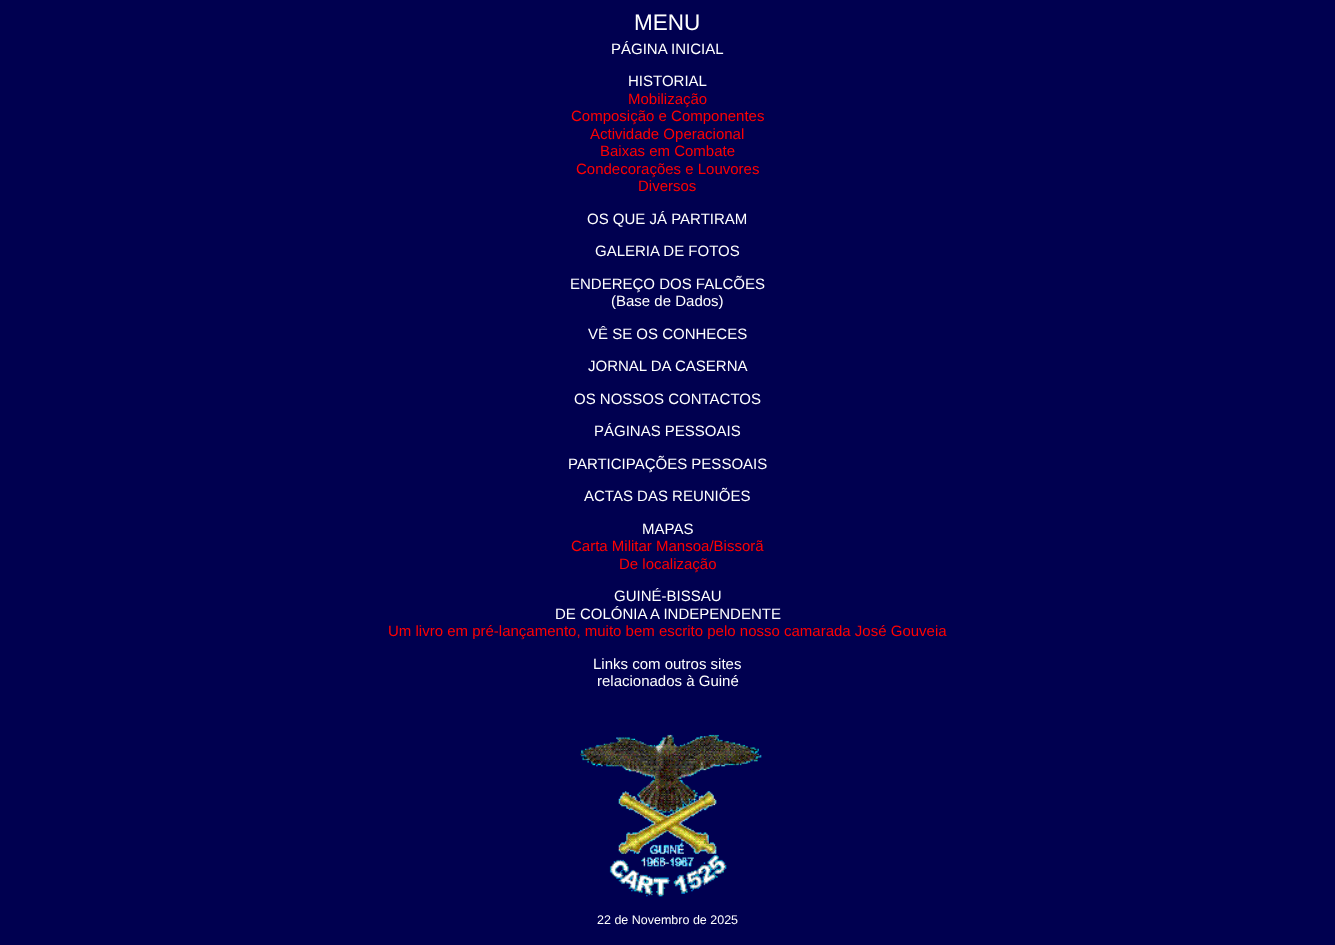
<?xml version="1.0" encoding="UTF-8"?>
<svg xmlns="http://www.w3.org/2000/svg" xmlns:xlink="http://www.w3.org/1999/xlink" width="1335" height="945">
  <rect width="100%" height="100%" fill="#000050" />
  <image x="580" y="734" width="182" height="163" xlink:href="image1.png" />
  <text x="634" y="30" style="font-family: Liberation Sans; font-size: 22.5px; fill: #ffffff">MENU</text>
  <text x="611" y="54" style="font-family: Liberation Sans; font-size: 15px; fill: #ffffff">PÁGINA INICIAL</text>
  <text x="628" y="86" style="font-family: Liberation Sans; font-size: 15px; fill: #ffffff">HISTORIAL</text>
  <text x="628" y="104" style="font-family: Liberation Sans; font-size: 15px; fill: #ff0000">Mobilização</text>
  <text x="571" y="121" style="font-family: Liberation Sans; font-size: 15px; fill: #ff0000">Composição e Componentes</text>
  <text x="590" y="139" style="font-family: Liberation Sans; font-size: 15px; fill: #ff0000">Actividade Operacional</text>
  <text x="600" y="156" style="font-family: Liberation Sans; font-size: 15px; fill: #ff0000">Baixas em Combate</text>
  <text x="576" y="174" style="font-family: Liberation Sans; font-size: 15px; fill: #ff0000">Condecorações e Louvores</text>
  <text x="638" y="191" style="font-family: Liberation Sans; font-size: 15px; fill: #ff0000">Diversos</text>
  <text x="587" y="224" style="font-family: Liberation Sans; font-size: 15px; fill: #ffffff">OS QUE JÁ PARTIRAM</text>
  <text x="595" y="256" style="font-family: Liberation Sans; font-size: 15px; fill: #ffffff">GALERIA DE FOTOS</text>
  <text x="570" y="289" style="font-family: Liberation Sans; font-size: 15px; fill: #ffffff">ENDEREÇO DOS FALCÕES</text>
  <text x="611" y="306" style="font-family: Liberation Sans; font-size: 15px; fill: #ffffff">(Base de Dados)</text>
  <text x="588" y="339" style="font-family: Liberation Sans; font-size: 15px; fill: #ffffff">VÊ SE OS CONHECES</text>
  <text x="588" y="371" style="font-family: Liberation Sans; font-size: 15px; fill: #ffffff">JORNAL DA CASERNA</text>
  <text x="574" y="404" style="font-family: Liberation Sans; font-size: 15px; fill: #ffffff">OS NOSSOS CONTACTOS</text>
  <text x="594" y="436" style="font-family: Liberation Sans; font-size: 15px; fill: #ffffff">PÁGINAS PESSOAIS</text>
  <text x="568" y="469" style="font-family: Liberation Sans; font-size: 15px; fill: #ffffff">PARTICIPAÇÕES PESSOAIS</text>
  <text x="584" y="501" style="font-family: Liberation Sans; font-size: 15px; fill: #ffffff">ACTAS DAS REUNIÕES</text>
  <text x="642" y="534" style="font-family: Liberation Sans; font-size: 15px; fill: #ffffff">MAPAS</text>
  <text x="571" y="551" style="font-family: Liberation Sans; font-size: 15px; fill: #ff0000">Carta Militar Mansoa/Bissorã</text>
  <text x="619" y="569" style="font-family: Liberation Sans; font-size: 15px; fill: #ff0000">De localização</text>
  <text x="614" y="601" style="font-family: Liberation Sans; font-size: 15px; fill: #ffffff">GUINÉ-BISSAU</text>
  <text x="555" y="619" style="font-family: Liberation Sans; font-size: 15px; fill: #ffffff">DE COLÓNIA A INDEPENDENTE</text>
  <text x="388" y="636" style="font-family: Liberation Sans; font-size: 15px; fill: #ff0000">Um livro em pré-lançamento, muito bem escrito pelo nosso camarada José Gouveia</text>
  <text x="593" y="669" style="font-family: Liberation Sans; font-size: 15px; fill: #ffffff">Links com outros sites</text>
  <text x="597" y="686" style="font-family: Liberation Sans; font-size: 15px; fill: #ffffff">relacionados à Guiné</text>
  <text x="597" y="924" style="font-family: Liberation Sans; font-size: 12.5px; fill: #ffffff">22 de Novembro de 2025</text>
</svg>
